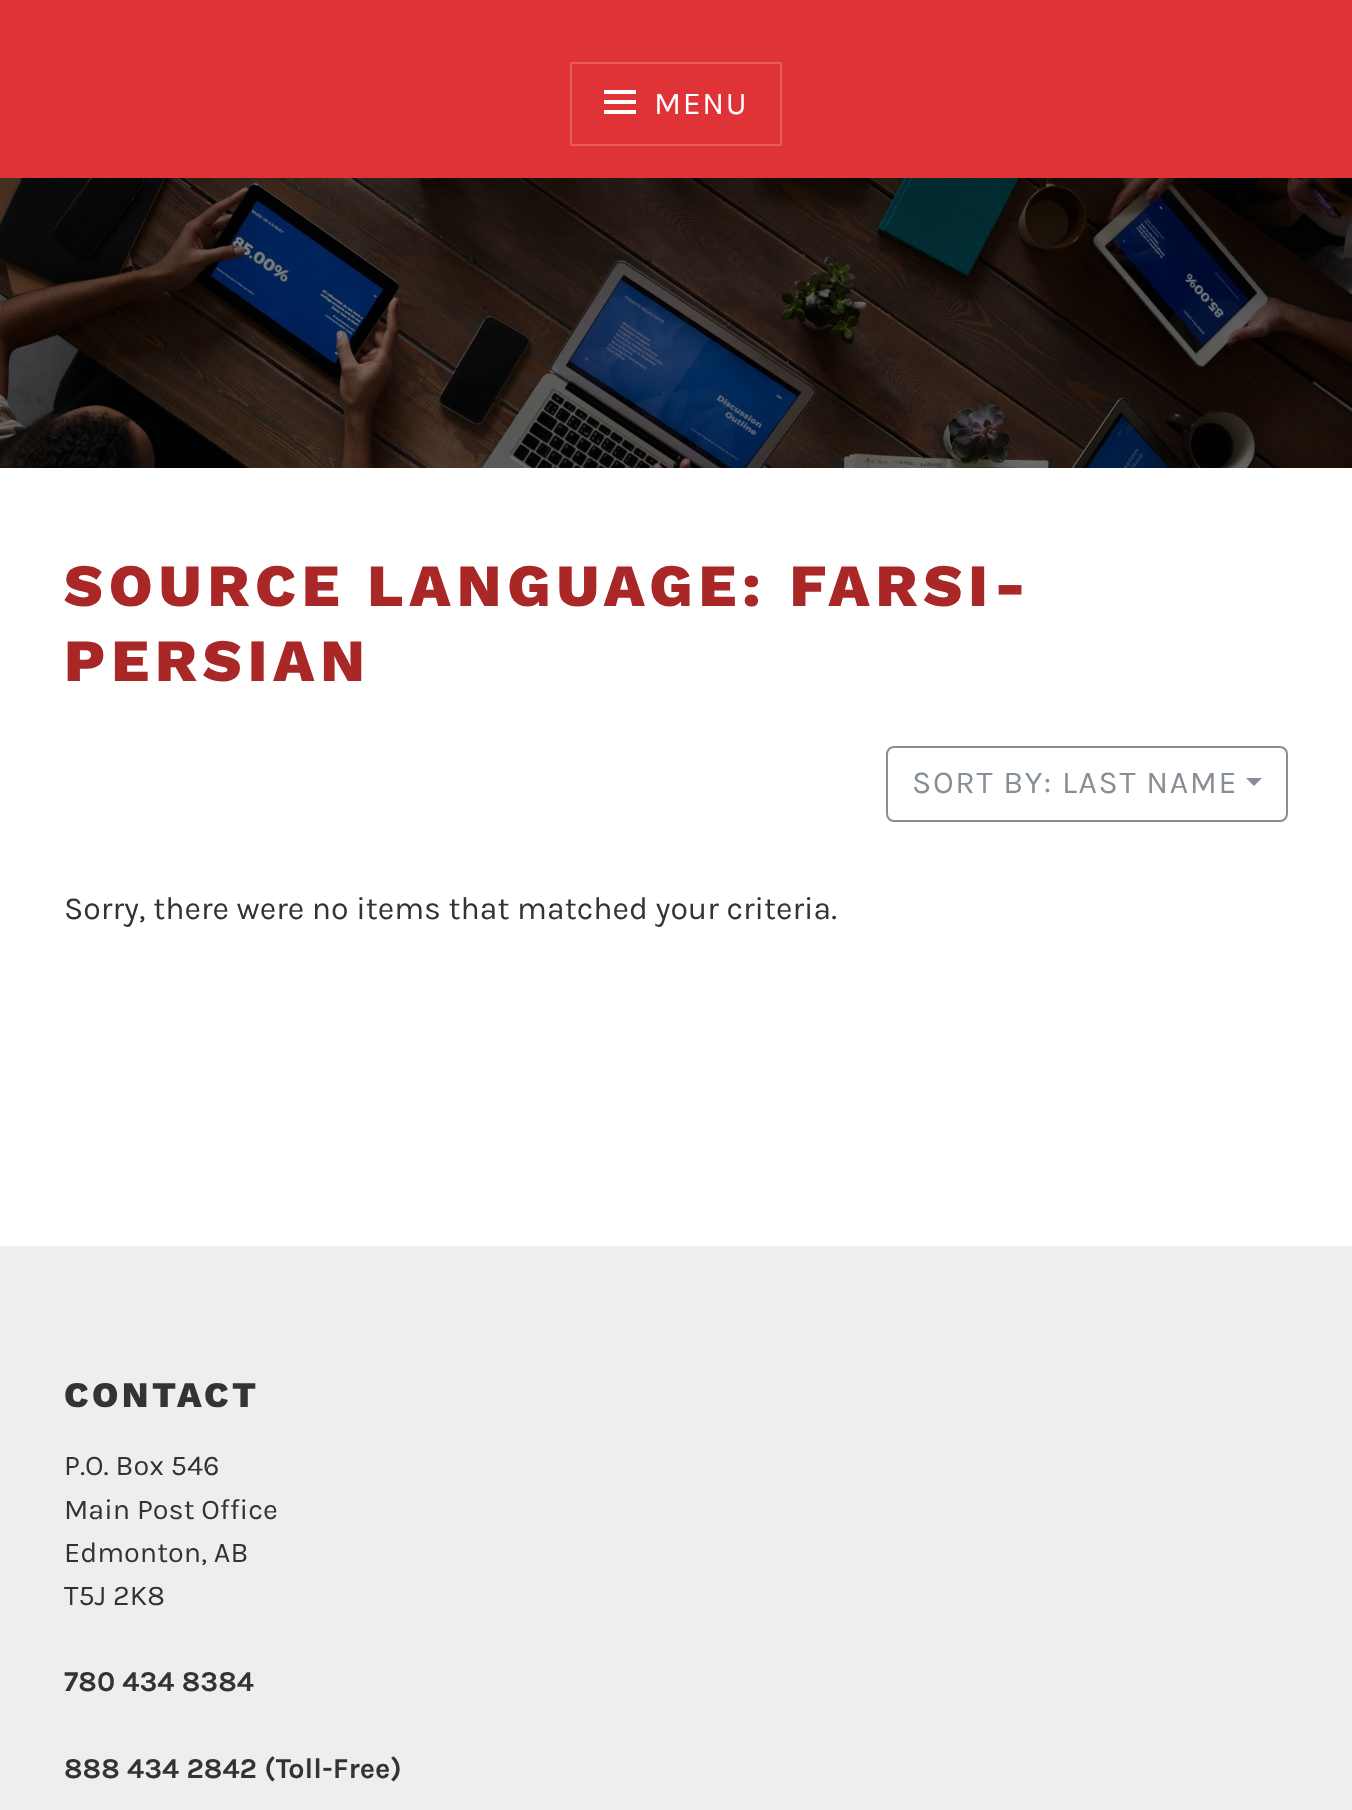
<?xml version="1.0" encoding="UTF-8"?>
<svg xmlns="http://www.w3.org/2000/svg" xmlns:xlink="http://www.w3.org/1999/xlink" width="1352" height="1810">
  <rect width="100%" height="100%" fill="#ffffff" />
  <rect width="1352" height="178" fill="#df3337" />
  <rect x="571" y="63" width="210" height="82" fill="none" stroke="#e55c5f" stroke-width="2" />
  <image x="604" y="90" width="32" height="24" xlink:href="image1.png" />
  <image x="0" y="178" width="1352" height="290" xlink:href="image2.png" />
  <rect x="887" y="747" width="400" height="74" rx="7" fill="none" stroke="#868e96" stroke-width="2" />
  <path d="M 1246 778 h 16 l -8 8 z" fill="#868e96" />
  <rect y="1246" width="1352" height="564" fill="#eeeeee" />
  <text x="654" y="114" style="font-family: Karla; font-size: 32px; letter-spacing: 1.6px; fill: #ffffff">MENU</text>
  <text x="64" y="606" style="font-family: Work Sans; font-size: 60px; font-weight: 800; letter-spacing: 6px; fill: #a92727">SOURCE LANGUAGE: FARSI-</text>
  <text x="64" y="681" style="font-family: Work Sans; font-size: 60px; font-weight: 800; letter-spacing: 6px; fill: #a92727">PERSIAN</text>
  <text x="912" y="793" style="font-family: Karla; font-size: 32px; letter-spacing: 1.6px; fill: #868e96">SORT BY: LAST NAME</text>
  <text x="64" y="919" style="font-family: Karla; font-size: 32px; fill: #333333">Sorry, there were no items that matched your criteria.</text>
  <text x="64" y="1407" style="font-family: Work Sans; font-size: 36px; font-weight: 800; letter-spacing: 3.5px; fill: #333333">CONTACT</text>
  <text x="64" y="1475" style="font-family: Karla; font-size: 28.75px; fill: #333333">P.O. Box 546</text>
  <text x="64" y="1519" style="font-family: Karla; font-size: 28.75px; fill: #333333">Main Post Office</text>
  <text x="64" y="1562" style="font-family: Karla; font-size: 28.75px; fill: #333333">Edmonton, AB</text>
  <text x="64" y="1605" style="font-family: Karla; font-size: 28.75px; fill: #333333">T5J 2K8</text>
  <text x="64" y="1691" style="font-family: Karla; font-size: 28.75px; font-weight: bold; fill: #333333">780 434 8384</text>
  <text x="64" y="1778" style="font-family: Karla; font-size: 28.75px; font-weight: bold; fill: #333333">888 434 2842 (Toll-Free)</text>
</svg>
